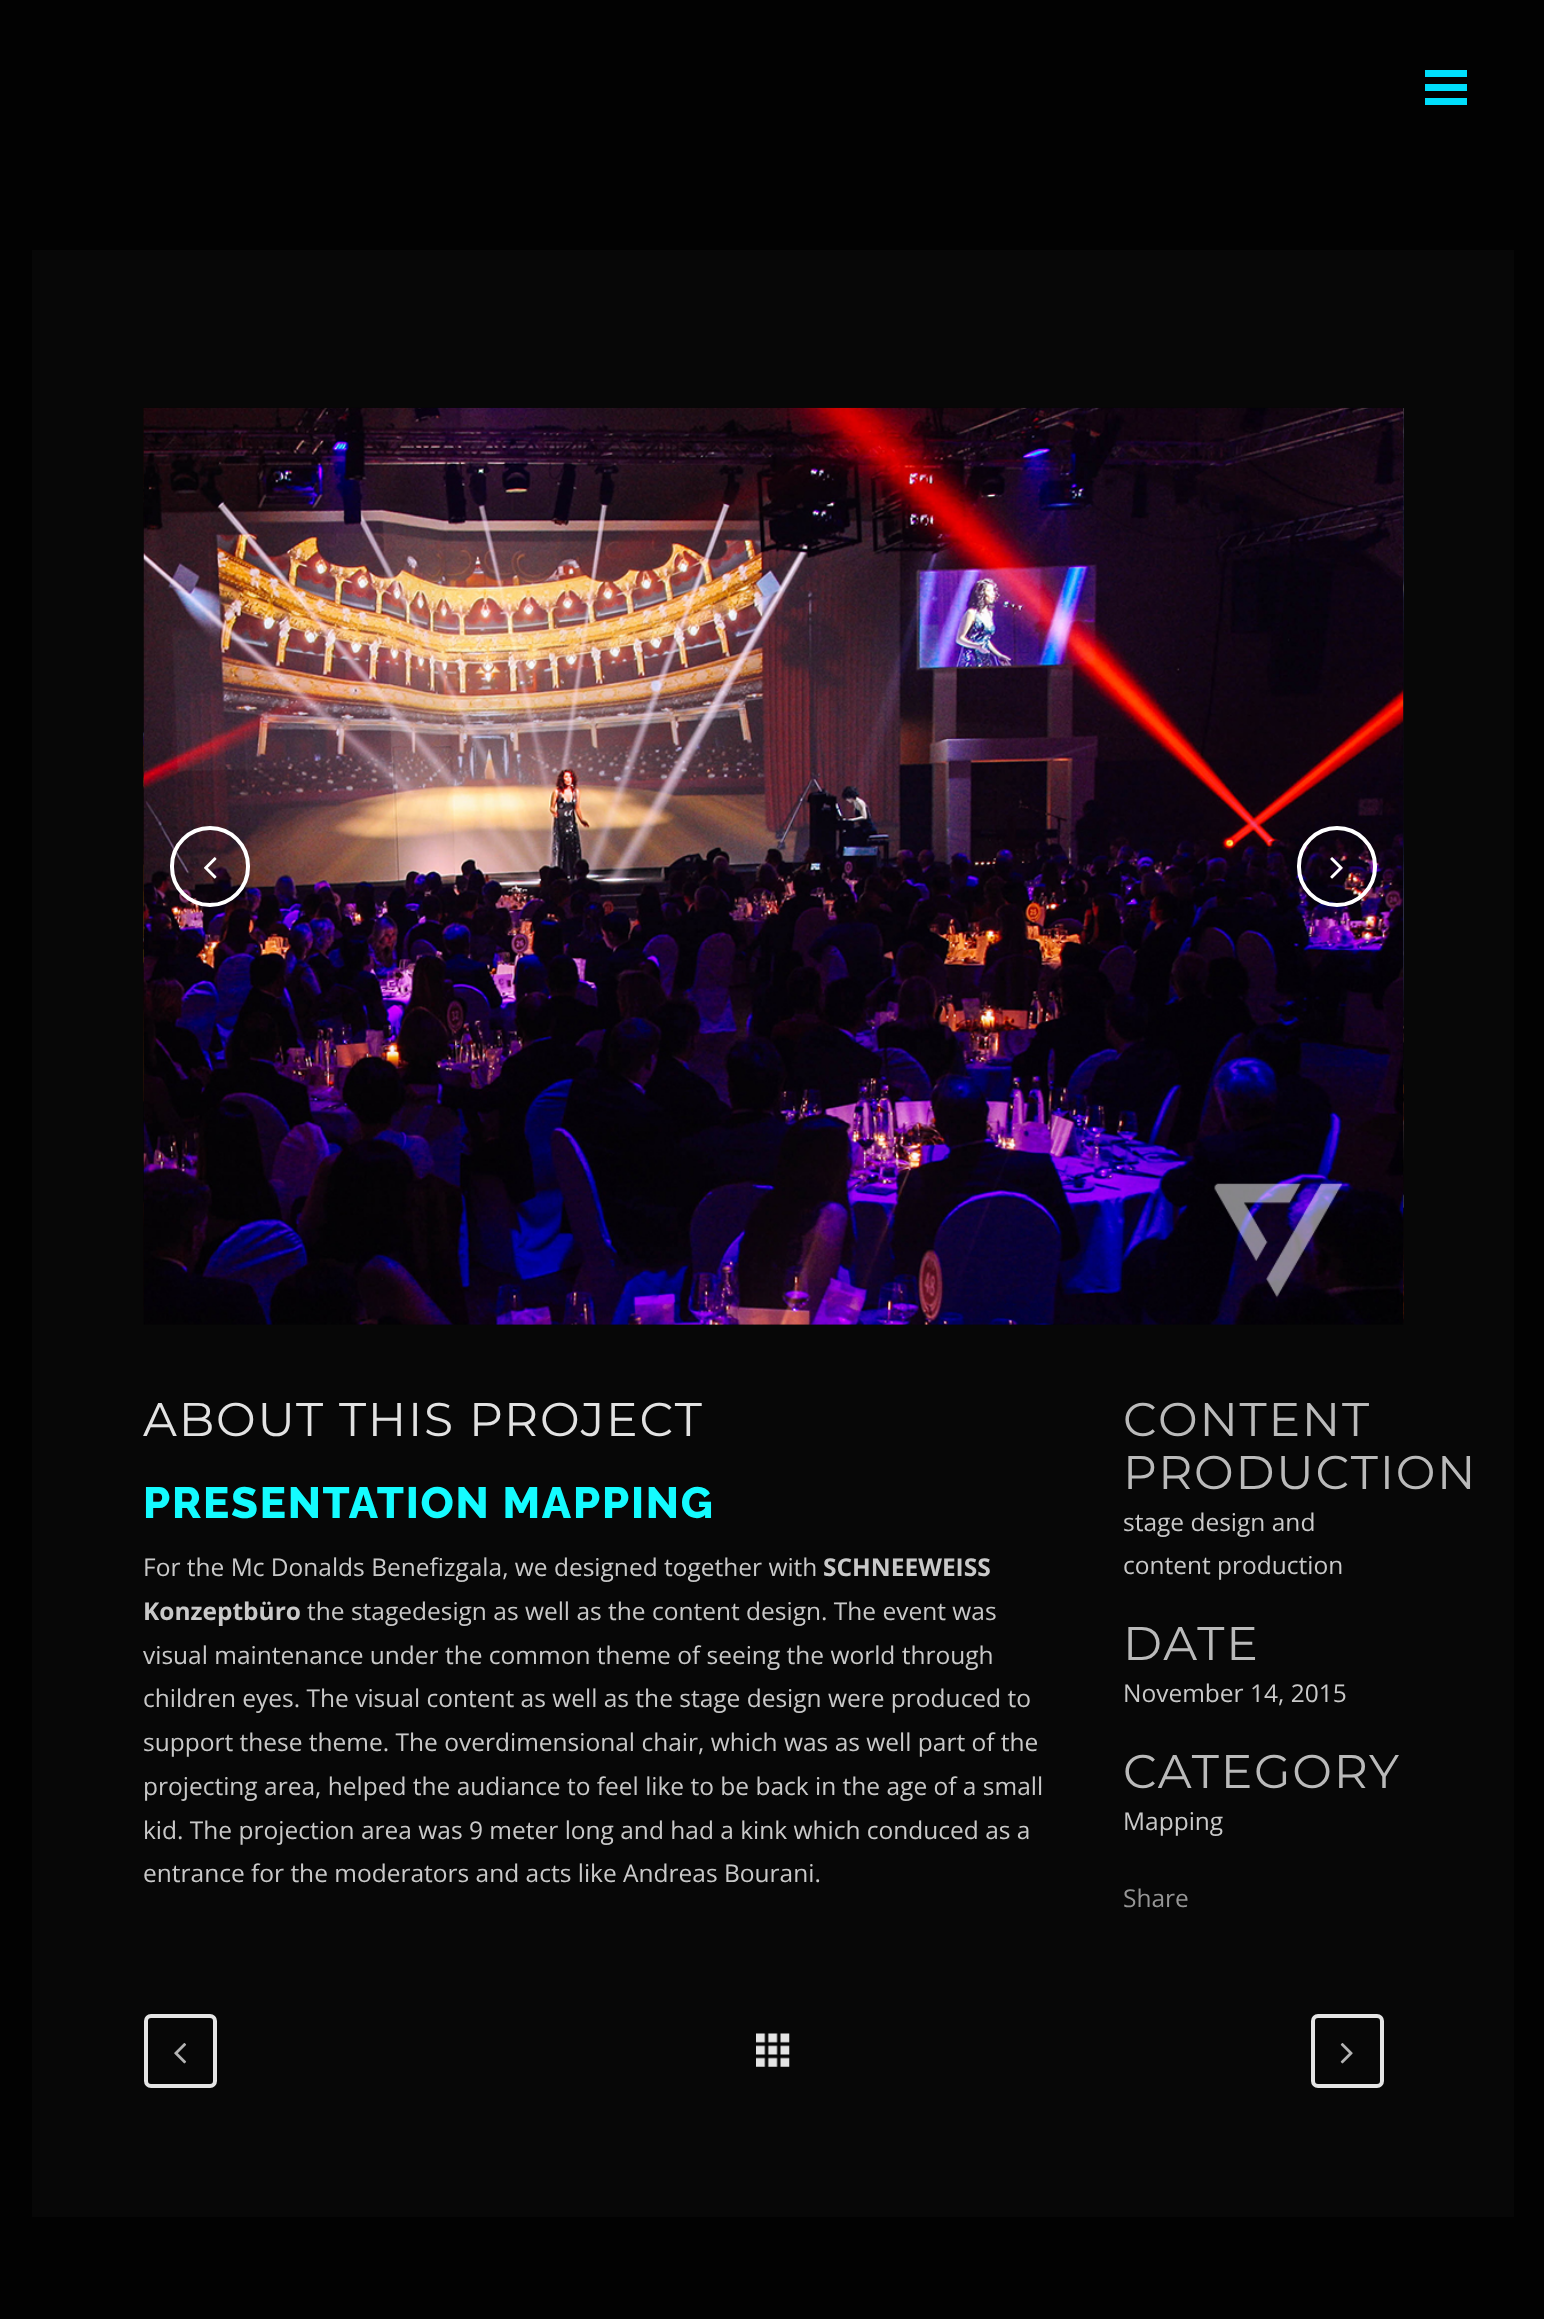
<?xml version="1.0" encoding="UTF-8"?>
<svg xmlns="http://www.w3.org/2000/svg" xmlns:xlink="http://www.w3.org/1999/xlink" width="1544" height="2319">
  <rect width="100%" height="100%" fill="#020202" />
  <rect x="1425" y="84" width="42" height="7" fill="#00defc" />
  <rect x="1425" y="70" width="42" height="7" fill="#00defc" />
  <rect x="1425" y="98" width="42" height="7" fill="#00defc" />
  <rect x="32" y="250" width="1482" height="1967" fill="#070707" />
  <image x="143" y="408" width="1" height="902" xlink:href="image2.png" />
  <image x="143" y="407" width="1261" height="918" xlink:href="image1.png" />
  <image x="1403" y="408" width="1" height="915" xlink:href="image3.png" />
  <rect x="172" y="828" width="76" height="77" rx="38" fill="none" stroke="#ffffff" stroke-width="4" />
  <image x="204" y="857" width="13" height="22" xlink:href="image4.png" />
  <rect x="1299" y="828" width="76" height="77" rx="38" fill="none" stroke="#ffffff" stroke-width="4" />
  <image x="1330" y="857" width="13" height="22" xlink:href="image5.png" />
  <rect x="146" y="2016" width="69" height="70" rx="5" fill="none" stroke="#e5e5e5" stroke-width="4" />
  <image x="174" y="2043" width="13" height="21" xlink:href="image6.png" />
  <image x="756" y="2033" width="34" height="34" xlink:href="image7.png" />
  <rect x="1313" y="2016" width="69" height="70" rx="5" fill="none" stroke="#e5e5e5" stroke-width="4" />
  <image x="1340" y="2043" width="13" height="21" xlink:href="image8.png" />
  <text x="143" y="1436" style="font-family: Montserrat; font-size: 47.25px; letter-spacing: 1.75px; fill: #e2e2e2">ABOUT THIS PROJECT</text>
  <text x="143" y="1518" style="font-family: Raleway; font-size: 43.75px; font-weight: 800; letter-spacing: 1.75px; fill: #14fbff">PRESENTATION MAPPING</text>
  <text x="143" y="1576" style="font-family: Open Sans; font-size: 24.5px; fill: #c9c9c9">For the Mc Donalds Benefizgala, we designed together with</text>
  <text x="823" y="1576" style="font-family: Open Sans; font-size: 24.5px; font-weight: bold; fill: #c9c9c9">SCHNEEWEISS</text>
  <text x="143" y="1620" style="font-family: Open Sans; font-size: 24.5px; font-weight: bold; fill: #c9c9c9">Konzeptbüro</text>
  <text x="307" y="1620" style="font-family: Open Sans; font-size: 24.5px; fill: #c9c9c9">the stagedesign as well as the content design. The event was</text>
  <text x="143" y="1664" style="font-family: Open Sans; font-size: 24.5px; fill: #c9c9c9">visual maintenance under the common theme of seeing the world through</text>
  <text x="143" y="1707" style="font-family: Open Sans; font-size: 24.5px; fill: #c9c9c9">children eyes. The visual content as well as the stage design were produced to</text>
  <text x="143" y="1751" style="font-family: Open Sans; font-size: 24.5px; fill: #c9c9c9">support these theme. The overdimensional chair, which was as well part of the</text>
  <text x="143" y="1795" style="font-family: Open Sans; font-size: 24.5px; fill: #c9c9c9">projecting area, helped the audiance to feel like to be back in the age of a small</text>
  <text x="143" y="1839" style="font-family: Open Sans; font-size: 24.5px; fill: #c9c9c9">kid. The projection area was 9 meter long and had a kink which conduced as a</text>
  <text x="143" y="1882" style="font-family: Open Sans; font-size: 24.5px; fill: #c9c9c9">entrance for the moderators and acts like Andreas Bourani.</text>
  <text x="1123" y="1436" style="font-family: Montserrat; font-size: 47.25px; letter-spacing: 1.75px; fill: #bababa">CONTENT</text>
  <text x="1123" y="1489" style="font-family: Montserrat; font-size: 47.25px; letter-spacing: 1.75px; fill: #bababa">PRODUCTION</text>
  <text x="1123" y="1531" style="font-family: Open Sans; font-size: 24.5px; fill: #c9c9c9">stage design and</text>
  <text x="1123" y="1574" style="font-family: Open Sans; font-size: 24.5px; fill: #c9c9c9">content production</text>
  <text x="1123" y="1660" style="font-family: Montserrat; font-size: 47.25px; letter-spacing: 1.75px; fill: #bababa">DATE</text>
  <text x="1123" y="1702" style="font-family: Open Sans; font-size: 24.5px; fill: #c9c9c9">November 14, 2015</text>
  <text x="1123" y="1788" style="font-family: Montserrat; font-size: 47.25px; letter-spacing: 1.75px; fill: #bababa">CATEGORY</text>
  <text x="1123" y="1830" style="font-family: Open Sans; font-size: 24.5px; fill: #c9c9c9">Mapping</text>
  <text x="1123" y="1907" style="font-family: Open Sans; font-size: 24.5px; fill: #969696">Share</text>
</svg>
